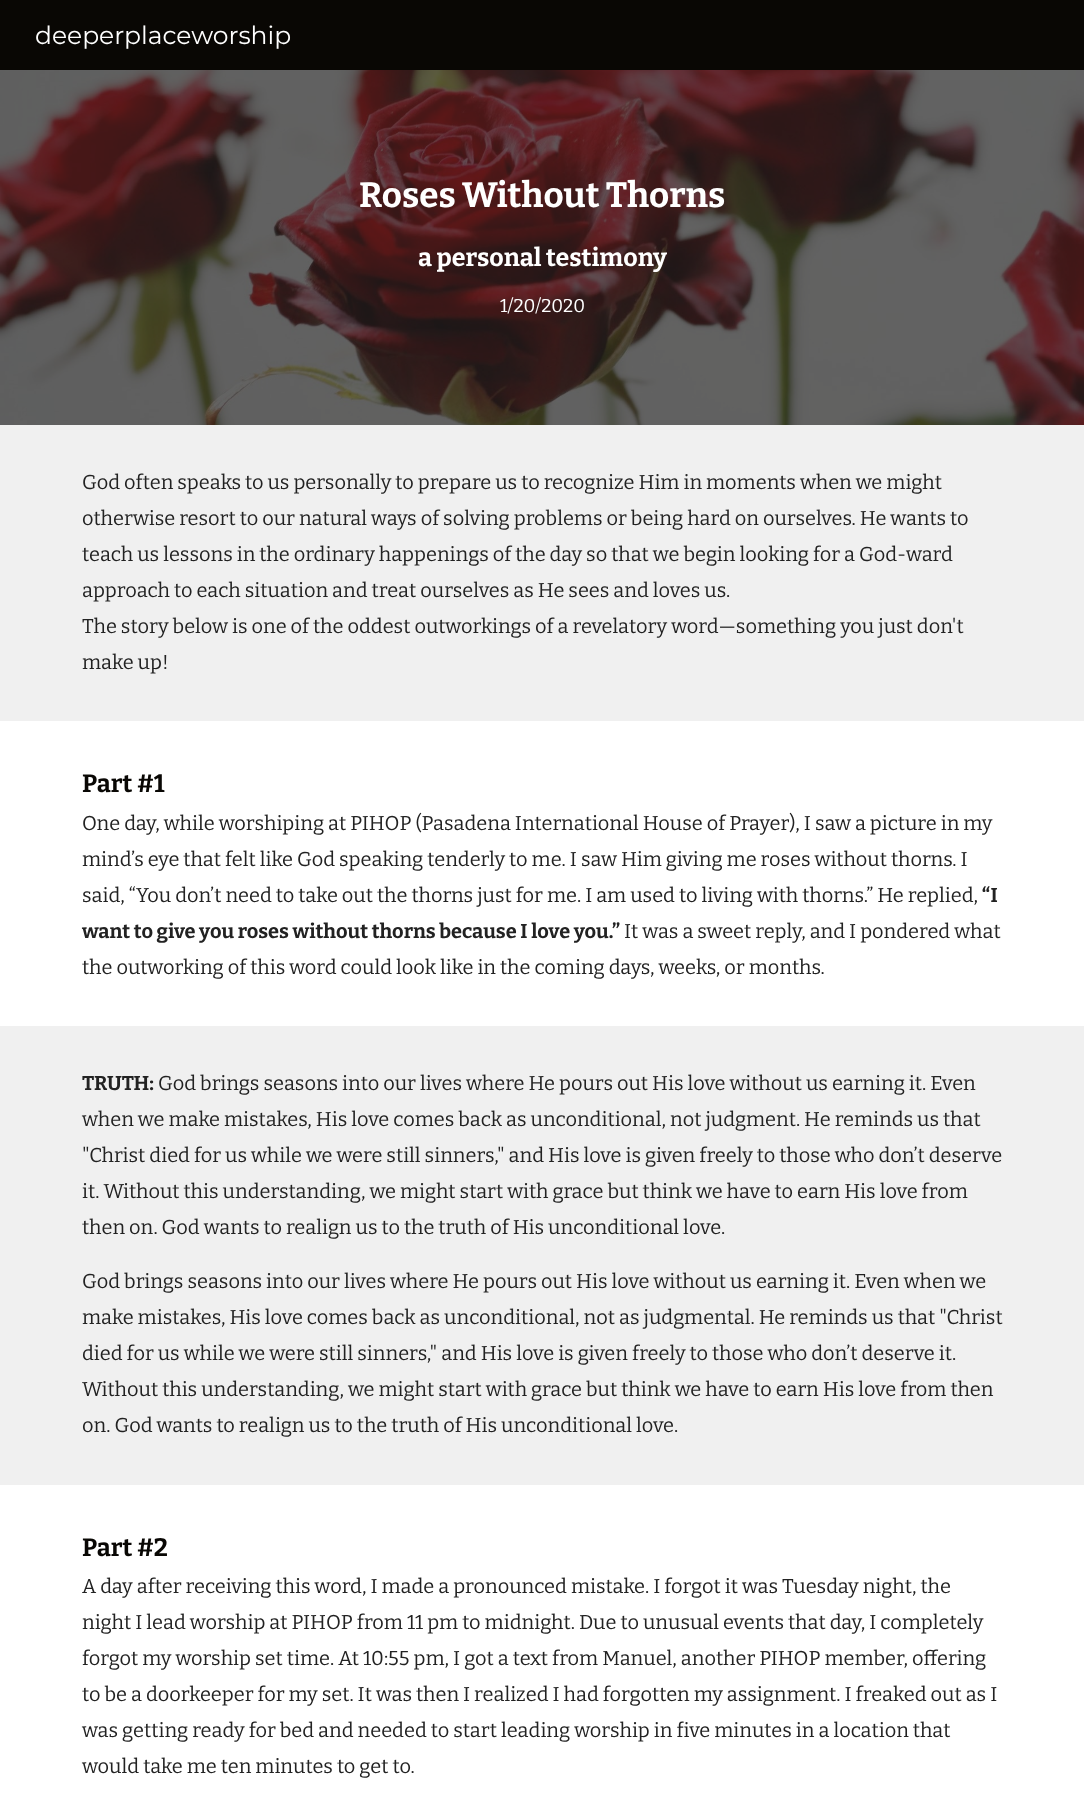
<?xml version="1.0" encoding="UTF-8"?>
<svg xmlns="http://www.w3.org/2000/svg" xmlns:xlink="http://www.w3.org/1999/xlink" width="1084" height="1808">
  <rect width="100%" height="100%" fill="#ffffff" />
  <rect width="1084" height="70" fill="#090704" />
  <image x="0" y="70" width="1084" height="355" xlink:href="image1.png" />
  <rect y="425" width="1084" height="296" fill="#f0f0f0" />
  <rect y="1026" width="1084" height="459" fill="#f0f0f0" />
  <text x="35" y="44" style="font-family: Montserrat; font-size: 25px; fill: #ffffff">deeperplaceworship</text>
  <text x="359" y="207" style="font-family: Bitter; font-size: 35px; font-weight: bold; fill: #ffffff">Roses Without Thorns</text>
  <text x="418" y="266" style="font-family: Bitter; font-size: 25px; font-weight: bold; fill: #ffffff">a personal testimony</text>
  <text x="500" y="312" style="font-family: Bitter; font-size: 18.5px; fill: #ffffff">1/20/2020</text>
  <text x="82" y="489" style="font-family: Bitter; font-size: 20px; fill: #222222">God often speaks to us personally to prepare us to recognize Him in moments when we might</text>
  <text x="82" y="525" style="font-family: Bitter; font-size: 20px; fill: #222222">otherwise resort to our natural ways of solving problems or being hard on ourselves. He wants to</text>
  <text x="82" y="561" style="font-family: Bitter; font-size: 20px; fill: #222222">teach us lessons in the ordinary happenings of the day so that we begin looking for a God-ward</text>
  <text x="82" y="597" style="font-family: Bitter; font-size: 20px; fill: #222222">approach to each situation and treat ourselves as He sees and loves us.</text>
  <text x="82" y="633" style="font-family: Bitter; font-size: 20px; fill: #222222">The story below is one of the oddest outworkings of a revelatory word—something you just don't</text>
  <text x="82" y="669" style="font-family: Bitter; font-size: 20px; fill: #222222">make up!</text>
  <text x="82" y="792" style="font-family: Bitter; font-size: 25px; font-weight: bold; fill: #090704">Part #1</text>
  <text x="82" y="830" style="font-family: Bitter; font-size: 20px; fill: #222222">One day, while worshiping at PIHOP (Pasadena International House of Prayer), I saw a picture in my</text>
  <text x="82" y="866" style="font-family: Bitter; font-size: 20px; fill: #222222">mind’s eye that felt like God speaking tenderly to me. I saw Him giving me roses without thorns. I</text>
  <text x="82" y="902" style="font-family: Bitter; font-size: 20px; fill: #222222">said, “You don’t need to take out the thorns just for me. I am used to living with thorns.” He replied,</text>
  <text x="982" y="902" style="font-family: Bitter; font-size: 20px; font-weight: bold; fill: #222222">“I</text>
  <text x="82" y="938" style="font-family: Bitter; font-size: 20px; font-weight: bold; fill: #222222">want to give you roses without thorns because I love you.”</text>
  <text x="624" y="938" style="font-family: Bitter; font-size: 20px; fill: #222222">It was a sweet reply, and I pondered what</text>
  <text x="82" y="974" style="font-family: Bitter; font-size: 20px; fill: #222222">the outworking of this word could look like in the coming days, weeks, or months.</text>
  <text x="82" y="1090" style="font-family: Bitter; font-size: 20px; font-weight: bold; fill: #222222">TRUTH:</text>
  <text x="158" y="1090" style="font-family: Bitter; font-size: 20px; fill: #222222">God brings seasons into our lives where He pours out His love without us earning it. Even</text>
  <text x="82" y="1126" style="font-family: Bitter; font-size: 20px; fill: #222222">when we make mistakes, His love comes back as unconditional, not judgment. He reminds us that</text>
  <text x="82" y="1162" style="font-family: Bitter; font-size: 20px; fill: #222222">"Christ died for us while we were still sinners," and His love is given freely to those who don’t deserve</text>
  <text x="82" y="1198" style="font-family: Bitter; font-size: 20px; fill: #222222">it. Without this understanding, we might start with grace but think we have to earn His love from</text>
  <text x="82" y="1234" style="font-family: Bitter; font-size: 20px; fill: #222222">then on. God wants to realign us to the truth of His unconditional love.</text>
  <text x="82" y="1288" style="font-family: Bitter; font-size: 20px; fill: #222222">God brings seasons into our lives where He pours out His love without us earning it. Even when we</text>
  <text x="82" y="1324" style="font-family: Bitter; font-size: 20px; fill: #222222">make mistakes, His love comes back as unconditional, not as judgmental. He reminds us that "Christ</text>
  <text x="82" y="1360" style="font-family: Bitter; font-size: 20px; fill: #222222">died for us while we were still sinners," and His love is given freely to those who don’t deserve it.</text>
  <text x="82" y="1396" style="font-family: Bitter; font-size: 20px; fill: #222222">Without this understanding, we might start with grace but think we have to earn His love from then</text>
  <text x="82" y="1432" style="font-family: Bitter; font-size: 20px; fill: #222222">on. God wants to realign us to the truth of His unconditional love.</text>
  <text x="82" y="1556" style="font-family: Bitter; font-size: 25px; font-weight: bold; fill: #090704">Part #2</text>
  <text x="82" y="1593" style="font-family: Bitter; font-size: 20px; fill: #222222">A day after receiving this word, I made a pronounced mistake. I forgot it was Tuesday night, the</text>
  <text x="82" y="1629" style="font-family: Bitter; font-size: 20px; fill: #222222">night I lead worship at PIHOP from 11 pm to midnight. Due to unusual events that day, I completely</text>
  <text x="82" y="1665" style="font-family: Bitter; font-size: 20px; fill: #222222">forgot my worship set time. At 10:55 pm, I got a text from Manuel, another PIHOP member, offering</text>
  <text x="82" y="1701" style="font-family: Bitter; font-size: 20px; fill: #222222">to be a doorkeeper for my set. It was then I realized I had forgotten my assignment. I freaked out as I</text>
  <text x="82" y="1737" style="font-family: Bitter; font-size: 20px; fill: #222222">was getting ready for bed and needed to start leading worship in five minutes in a location that</text>
  <text x="82" y="1773" style="font-family: Bitter; font-size: 20px; fill: #222222">would take me ten minutes to get to.</text>
</svg>
